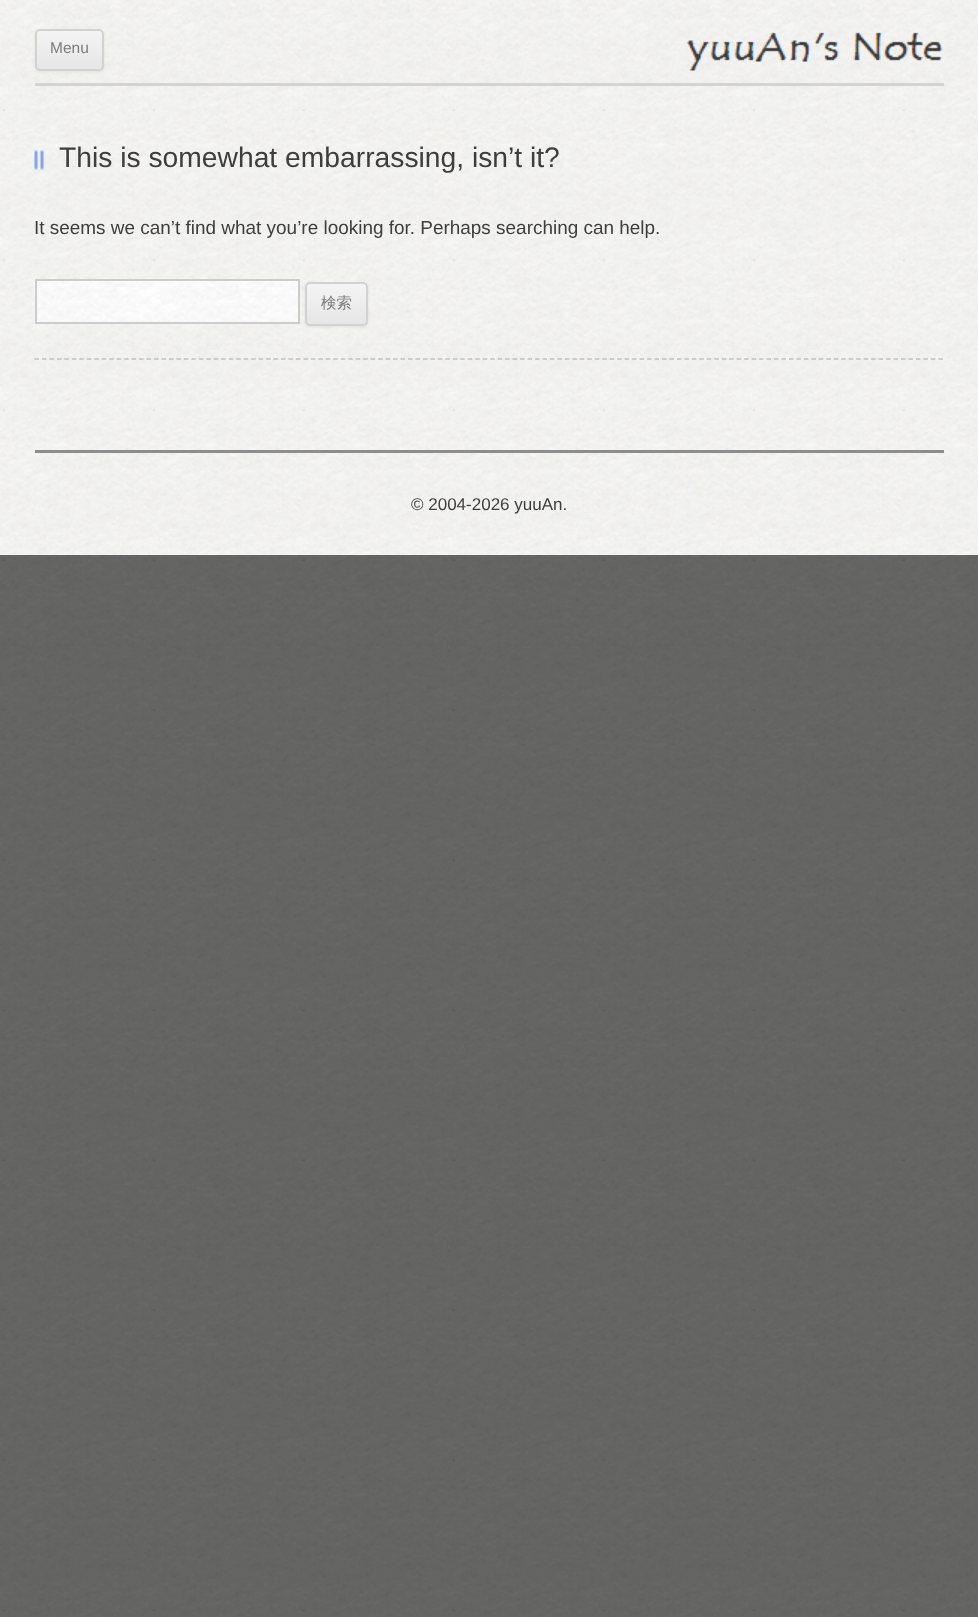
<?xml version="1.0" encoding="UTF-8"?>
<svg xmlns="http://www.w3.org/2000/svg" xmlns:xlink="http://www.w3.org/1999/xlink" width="978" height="1617">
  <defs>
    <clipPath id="clip1"><rect x="35" y="29" width="69" height="42" rx="5" /></clipPath>
    <linearGradient id="g1" gradientUnits="userSpaceOnUse" x1="69" y1="30" x2="69" y2="69"><stop offset="0" stop-color="#f4f4f4" /><stop offset="1" stop-color="#e6e6e6" /></linearGradient>
    <clipPath id="clip2"><rect x="305" y="282" width="63" height="44" rx="5" /></clipPath>
    <linearGradient id="g2" gradientUnits="userSpaceOnUse" x1="336" y1="284" x2="336" y2="324"><stop offset="0" stop-color="#f4f4f4" /><stop offset="1" stop-color="#e6e6e6" /></linearGradient>
  </defs>
  <rect width="100%" height="100%" fill="#ffffff" />
  <image x="0" y="555" width="978" height="1062" xlink:href="image1.png" />
  <image x="0" y="0" width="978" height="555" xlink:href="image2.png" />
  <rect x="35" y="83" width="909" height="3" fill="#d3d3d3" />
  <rect x="35" y="30" width="69" height="42" rx="5" fill="#404040" fill-opacity="0.1" filter="blur(1.5px)" />
  <g clip-path="url(#clip1)">
    <rect x="35" y="30" width="69" height="39" fill="url(#g1)" />
  </g>
  <rect x="36" y="30" width="67" height="40" rx="4" fill="none" stroke="#d2d2d2" stroke-width="2" />
  <image x="686" y="32" width="257" height="39" xlink:href="image3.png" />
  <path d="M 34.5 359 h 909" fill="none" stroke="#c0c0c0" stroke-width="1.5" stroke-dasharray="4.5 2.97" />
  <image x="34" y="149" width="10" height="21" xlink:href="image4.png" />
  <image x="34" y="279" width="264" height="45" xlink:href="image5.png" />
  <rect x="36" y="280" width="263" height="43" fill="none" stroke="#cccccc" stroke-width="2" />
  <rect x="305" y="284" width="63" height="43" rx="5" fill="#404040" fill-opacity="0.1" filter="blur(1.5px)" />
  <g clip-path="url(#clip2)">
    <rect x="305" y="284" width="63" height="40" fill="url(#g2)" />
  </g>
  <rect x="306" y="283" width="61" height="42" rx="4" fill="none" stroke="#d2d2d2" stroke-width="2" />
  <rect x="35" y="450" width="909" height="3" fill="#8d8d8d" />
  <text x="50" y="53" style="font-family: Liberation Sans; font-size: 15.5px; fill: #7c7c7c">Menu</text>
  <text x="59" y="167" style="font-family: Liberation Sans; font-size: 28.25px; fill: #3e3e3e">This is somewhat embarrassing, isn’t it?</text>
  <text x="34" y="234" style="font-family: Liberation Sans; font-size: 18.95px; fill: #3e3e3e">It seems we can’t find what you’re looking for. Perhaps searching can help.</text>
  <text x="321" y="308" style="font-family: WenQuanYi Zen Hei; font-size: 15.5px; font-weight: 500; fill: #7c7c7c">検索</text>
  <text x="411" y="510" style="font-family: Liberation Sans; font-size: 17px; fill: #3e3e3e">© 2004-2026 yuuAn.</text>
</svg>
